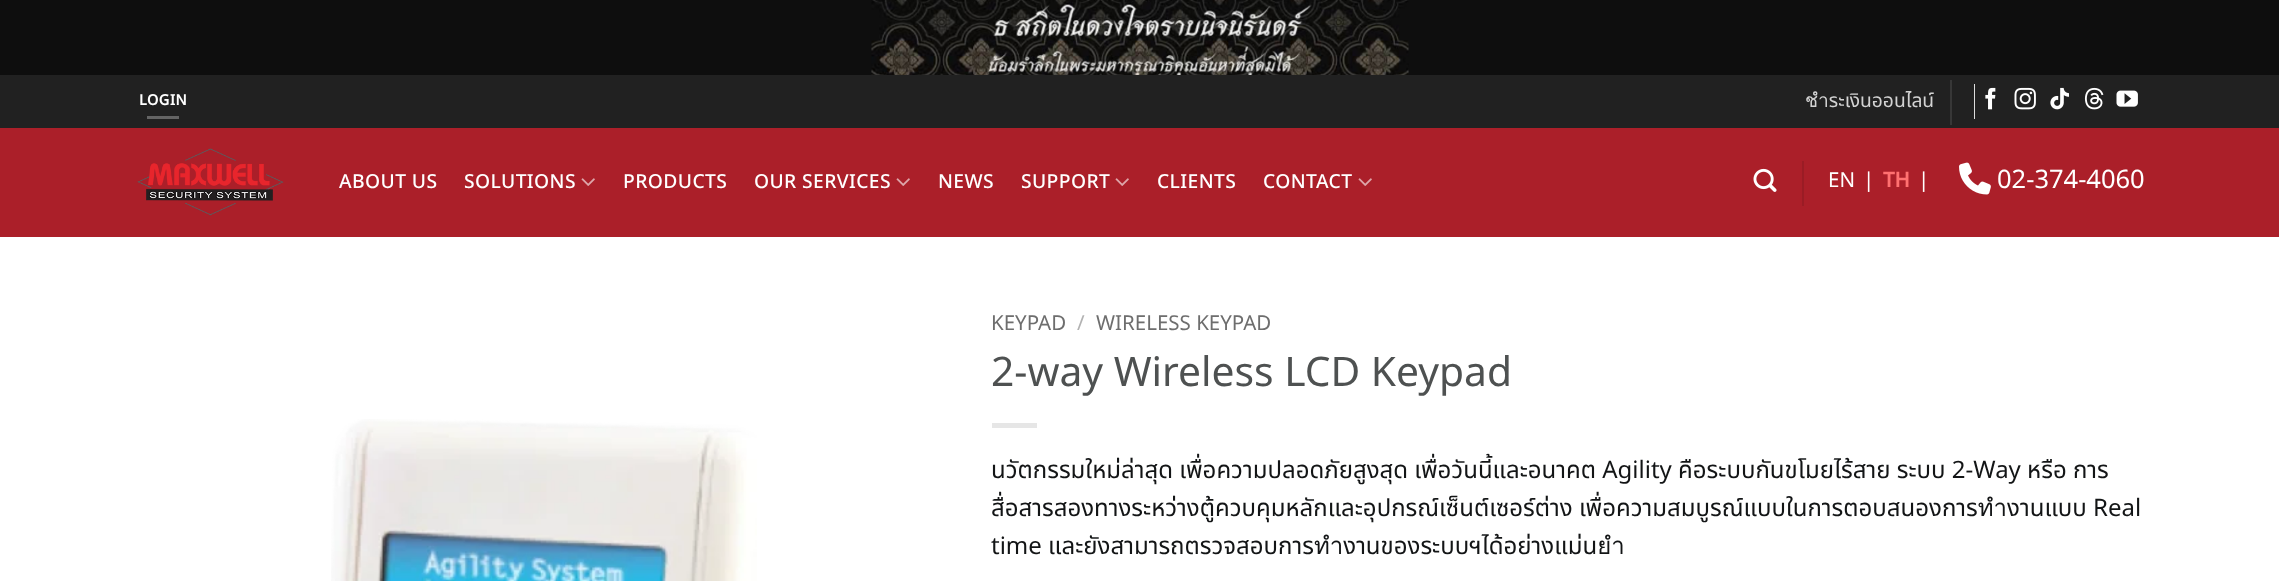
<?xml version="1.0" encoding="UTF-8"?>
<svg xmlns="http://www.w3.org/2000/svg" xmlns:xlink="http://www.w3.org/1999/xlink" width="2279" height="581">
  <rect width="100%" height="100%" fill="#0e0e0e" />
  <image x="871" y="0" width="538" height="75" xlink:href="image1.png" />
  <rect y="237" width="2279" height="344" fill="#ffffff" />
  <rect y="75" width="2279" height="53" fill="#212121" />
  <rect x="147" y="116" width="32" height="3" fill="#646464" />
  <rect x="1950" y="80" width="2" height="45" fill="#373737" />
  <rect x="1974" y="84" width="1" height="35" fill="#dddddd" />
  <image x="1985" y="87" width="11" height="23" xlink:href="image2.png" />
  <image x="2014" y="87" width="22" height="23" xlink:href="image3.png" />
  <image x="2050" y="87" width="19" height="23" xlink:href="image4.png" />
  <image x="2084" y="87" width="20" height="23" xlink:href="image5.png" />
  <image x="2116" y="90" width="22" height="17" xlink:href="image6.png" />
  <rect y="128" width="2279" height="109" fill="#ab1f29" />
  <image x="137" y="148" width="147" height="68" xlink:href="image7.png" />
  <image x="581" y="178" width="14" height="8" xlink:href="image8.png" />
  <image x="896" y="178" width="14" height="8" xlink:href="image8.png" />
  <image x="1115" y="178" width="14" height="8" xlink:href="image8.png" />
  <image x="1358" y="178" width="14" height="8" xlink:href="image8.png" />
  <image x="1753" y="168" width="24" height="24" xlink:href="image9.png" />
  <rect x="1802" y="161" width="2" height="45" fill="#9a1c25" />
  <image x="1959" y="162" width="32" height="33" xlink:href="image10.png" />
  <image x="331" y="419" width="426" height="162" xlink:href="image11.png" />
  <rect x="992" y="423" width="45" height="5" fill="#e6e6e6" />
  <text x="139" y="105" style="font-family: Noto Sans Thai; font-size: 14.5px; font-weight: bold; letter-spacing: 0.5px; fill: #ffffff">LOGIN</text>
  <text x="1805" y="107" style="font-family: Noto Sans Thai; font-size: 19.25px; fill: #d3d3d3">ชำระเงินออนไลน์</text>
  <text x="339" y="188" style="font-family: Noto Sans Thai; font-size: 19.25px; font-weight: 500; letter-spacing: 0.4px; fill: #ffffff">ABOUT US</text>
  <text x="464" y="188" style="font-family: Noto Sans Thai; font-size: 19.25px; font-weight: 500; letter-spacing: 0.4px; fill: #ffffff">SOLUTIONS</text>
  <text x="623" y="188" style="font-family: Noto Sans Thai; font-size: 19.25px; font-weight: 500; letter-spacing: 0.4px; fill: #ffffff">PRODUCTS</text>
  <text x="754" y="188" style="font-family: Noto Sans Thai; font-size: 19.25px; font-weight: 500; letter-spacing: 0.4px; fill: #ffffff">OUR SERVICES</text>
  <text x="938" y="188" style="font-family: Noto Sans Thai; font-size: 19.25px; font-weight: 500; letter-spacing: 0.4px; fill: #ffffff">NEWS</text>
  <text x="1021" y="188" style="font-family: Noto Sans Thai; font-size: 19.25px; font-weight: 500; letter-spacing: 0.4px; fill: #ffffff">SUPPORT</text>
  <text x="1157" y="188" style="font-family: Noto Sans Thai; font-size: 19.25px; font-weight: 500; letter-spacing: 0.4px; fill: #ffffff">CLIENTS</text>
  <text x="1263" y="188" style="font-family: Noto Sans Thai; font-size: 19.25px; font-weight: 500; letter-spacing: 0.4px; fill: #ffffff">CONTACT</text>
  <text x="1828" y="187" style="font-family: Noto Sans Thai; font-size: 20.5px; fill: #ffffff">EN</text>
  <text x="1863" y="187" style="font-family: Noto Sans Thai; font-size: 20.5px; fill: #ffffff">|</text>
  <text x="1883" y="187" style="font-family: Noto Sans Thai; font-size: 20.5px; font-weight: bold; fill: #ff7171">TH</text>
  <text x="1918" y="187" style="font-family: Noto Sans Thai; font-size: 20.5px; fill: #ffffff">|</text>
  <text x="1997" y="188" style="font-family: Noto Sans Thai; font-size: 25.5px; fill: #ffffff">02-374-4060</text>
  <text x="991" y="330" style="font-family: Noto Sans Thai; font-size: 20.5px; fill: #6e6e6e">KEYPAD</text>
  <text x="1077" y="330" style="font-family: Noto Sans Thai; font-size: 20.5px; fill: #b2b2b2">/</text>
  <text x="1096" y="330" style="font-family: Noto Sans Thai; font-size: 20.5px; fill: #6e6e6e">WIRELESS KEYPAD</text>
  <text x="991" y="386" style="font-family: Noto Sans Thai; font-size: 40.75px; fill: #4e5151">2-way Wireless LCD Keypad</text>
  <text x="991" y="478" style="font-family: Noto Sans Thai; font-size: 24px; fill: #131516">นวัตกรรมใหม่ล่าสุด เพื่อความปลอดภัยสูงสุด เพื่อวันนี้และอนาคต Agility คือระบบกันขโมยไร้สาย ระบบ 2-Way หรือ การ</text>
  <text x="991" y="516" style="font-family: Noto Sans Thai; font-size: 24px; fill: #131516">สื่อสารสองทางระหว่างตู้ควบคุมหลักและอุปกรณ์เซ็นต์เซอร์ต่าง เพื่อความสมบูรณ์แบบในการตอบสนองการทำงานแบบ Real</text>
  <text x="991" y="554" style="font-family: Noto Sans Thai; font-size: 24px; fill: #131516">time และยังสามารถตรวจสอบการทำงานของระบบฯได้อย่างแม่นยำ</text>
</svg>
